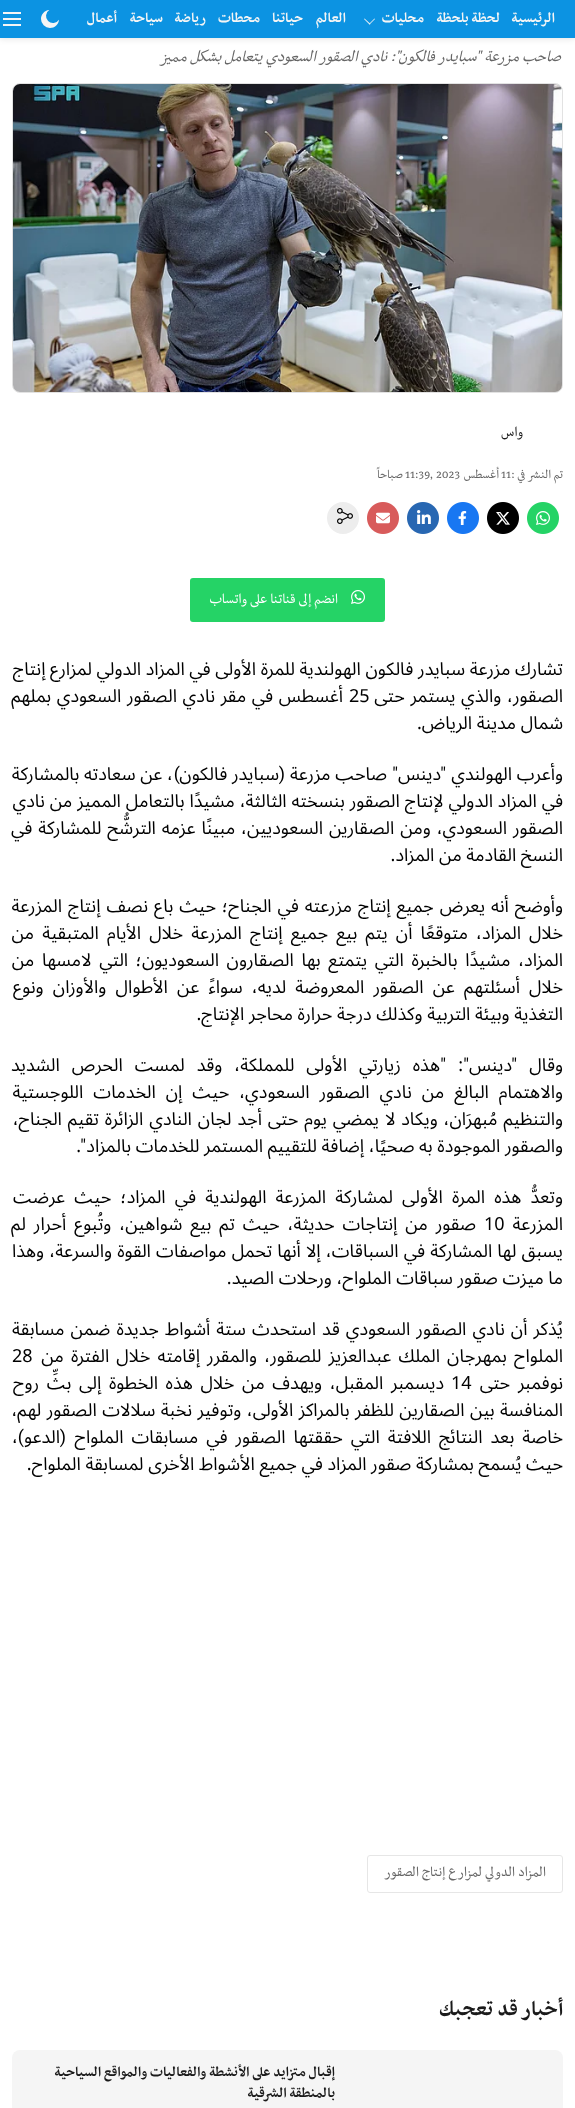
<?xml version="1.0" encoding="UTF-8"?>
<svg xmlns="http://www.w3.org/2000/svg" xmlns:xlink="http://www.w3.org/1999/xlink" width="575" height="2108">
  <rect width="100%" height="100%" fill="#ffffff" />
  <rect y="1" width="575" height="38" fill="#000000" fill-opacity="0.1" filter="blur(3px)" />
  <rect width="575" height="38" fill="#0c93e2" />
  <path d="M 374.5 18.5 l 0.5 0.5 l -5.5 5.5 l -0.5 -0.5 z" fill="#f5f5f5" />
  <path d="M 364.5 18.5 l 6 5.5 l -1 0.5 l -5.5 -5.5 z" fill="#f5f5f5" />
  <image x="41" y="10" width="18" height="18" xlink:href="image1.png" />
  <image x="3" y="12" width="18" height="14" xlink:href="image2.png" />
  <rect x="12.5" y="83.5" width="550" height="309" rx="7.5" fill="none" stroke="#e2e2e2" />
  <image x="13" y="84" width="549" height="308" xlink:href="image3.png" />
  <image x="527" y="502" width="32" height="32" xlink:href="image4.png" />
  <image x="487" y="502" width="32" height="32" xlink:href="image5.png" />
  <image x="447" y="502" width="32" height="32" xlink:href="image6.png" />
  <image x="407" y="502" width="32" height="32" xlink:href="image7.png" />
  <image x="367" y="502" width="32" height="32" xlink:href="image8.png" />
  <circle cx="343" cy="518" r="16" fill="#ededed" />
  <image x="337" y="508" width="16" height="16" xlink:href="image9.png" />
  <rect x="189" y="577" width="197" height="46" rx="4" fill="#25d366" stroke="#ffffff" stroke-width="2" />
  <image x="351" y="590" width="14" height="14" xlink:href="image10.png" />
  <rect x="367.5" y="1855.5" width="195" height="37" rx="2.5" fill="none" stroke="#e6e6e6" />
  <rect x="12" y="2050" width="551" height="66" rx="8" fill="#f5f5f5" />
  <text x="555" y="22" style="font-family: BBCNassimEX; font-size: 16px; font-weight: bold; direction: rtl; fill: #f5f5f5">الرئيسية</text>
  <text x="500" y="22" style="font-family: BBCNassimEX; font-size: 16px; font-weight: bold; direction: rtl; fill: #f5f5f5">لحظة بلحظة</text>
  <text x="424" y="22" style="font-family: BBCNassimEX; font-size: 16px; font-weight: bold; direction: rtl; fill: #f5f5f5">محليات</text>
  <text x="346" y="22" style="font-family: BBCNassimEX; font-size: 16px; font-weight: bold; direction: rtl; fill: #f5f5f5">العالم</text>
  <text x="303" y="22" style="font-family: BBCNassimEX; font-size: 16px; font-weight: bold; direction: rtl; fill: #f5f5f5">حياتنا</text>
  <text x="260" y="22" style="font-family: BBCNassimEX; font-size: 16px; font-weight: bold; direction: rtl; fill: #f5f5f5">محطات</text>
  <text x="206" y="22" style="font-family: BBCNassimEX; font-size: 16px; font-weight: bold; direction: rtl; fill: #f5f5f5">رياضة</text>
  <text x="163" y="22" style="font-family: BBCNassimEX; font-size: 16px; font-weight: bold; direction: rtl; fill: #f5f5f5">سياحة</text>
  <text x="117" y="22" style="font-family: BBCNassimEX; font-size: 16px; font-weight: bold; direction: rtl; fill: #f5f5f5">أعمال</text>
  <text x="561" y="61" style="font-family: BBCNassimEX; font-size: 18px; font-style: italic; direction: rtl; fill: #666666">صاحب مزرعة "سبايدر فالكون": نادي الصقور السعودي يتعامل بشكل مميز</text>
  <text x="523" y="436" style="font-family: BBCNassimEX; font-size: 16px; direction: rtl; fill: #1a1a1a">واس</text>
  <text x="563" y="478" style="font-family: BBCNassimEX; font-size: 14px; direction: rtl; fill: #666666">تم النشر في</text>
  <text x="511" y="478" style="font-family: BBCNassimEX; font-size: 14px; fill: #666666">:</text>
  <text x="501" y="478" style="font-family: BBCNassimEX; font-size: 14px; fill: #666666">11</text>
  <text x="499" y="478" style="font-family: BBCNassimEX; font-size: 14px; direction: rtl; fill: #666666">أغسطس</text>
  <text x="405" y="478" style="font-family: BBCNassimEX; font-size: 14px; fill: #666666">11:39, 2023</text>
  <text x="403" y="478" style="font-family: BBCNassimEX; font-size: 14px; direction: rtl; fill: #666666">صباحاً</text>
  <text x="338" y="603" style="font-family: BBCNassimEX; font-size: 16px; direction: rtl; fill: #ffffff">انضم إلى قناتنا على واتساب</text>
  <text x="563" y="675" style="font-family: Noto Sans Arabic; font-size: 18px; direction: rtl; fill: #000000">تشارك مزرعة سبايدر فالكون الهولندية للمرة الأولى في المزاد الدولي لمزارع إنتاج</text>
  <text x="563" y="702" word-spacing="1" style="font-family: Noto Sans Arabic; font-size: 18px; direction: rtl; fill: #000000">الصقور، والذي يستمر حتى</text>
  <text x="349" y="702" style="font-family: Noto Sans Arabic; font-size: 18px; fill: #000000">25</text>
  <text x="343" y="702" word-spacing="1" style="font-family: Noto Sans Arabic; font-size: 18px; direction: rtl; fill: #000000">أغسطس في مقر نادي الصقور السعودي بملهم</text>
  <text x="563" y="729" style="font-family: Noto Sans Arabic; font-size: 18px; direction: rtl; fill: #000000">شمال مدينة الرياض.</text>
  <text x="563" y="780" style="font-family: Noto Sans Arabic; font-size: 18px; direction: rtl; fill: #000000">وأعرب الهولندي</text>
  <text x="446" y="780" style="font-family: Roboto; font-size: 18px; direction: rtl; fill: #000000">"</text>
  <text x="441" y="780" style="font-family: Noto Sans Arabic; font-size: 18px; direction: rtl; fill: #000000">دينس</text>
  <text x="398" y="780" style="font-family: Roboto; font-size: 18px; direction: rtl; fill: #000000">"</text>
  <text x="387" y="780" style="font-family: Noto Sans Arabic; font-size: 18px; direction: rtl; fill: #000000">صاحب مزرعة</text>
  <text x="285" y="780" style="font-family: Roboto; font-size: 18px; direction: rtl; fill: #000000">(</text>
  <text x="279" y="780" style="font-family: Noto Sans Arabic; font-size: 18px; direction: rtl; fill: #000000">سبايدر فالكون</text>
  <text x="180" y="780" style="font-family: Roboto; font-size: 18px; direction: rtl; fill: #000000">)</text>
  <text x="173" y="780" style="font-family: Noto Sans Arabic; font-size: 18px; direction: rtl; fill: #000000">، عن سعادته بالمشاركة</text>
  <text x="563" y="807" word-spacing="0.25" style="font-family: Noto Sans Arabic; font-size: 18px; direction: rtl; fill: #000000">في المزاد الدولي لإنتاج الصقور بنسخته الثالثة، مشيدًا بالتعامل المميز من نادي</text>
  <text x="563" y="834" word-spacing="1.25" style="font-family: Noto Sans Arabic; font-size: 18px; direction: rtl; fill: #000000">الصقور السعودي، ومن الصقارين السعوديين، مبينًا عزمه الترشُّح للمشاركة في</text>
  <text x="563" y="861" style="font-family: Noto Sans Arabic; font-size: 18px; direction: rtl; fill: #000000">النسخ القادمة من المزاد.</text>
  <text x="563" y="912" word-spacing="1.25" style="font-family: Noto Sans Arabic; font-size: 18px; direction: rtl; fill: #000000">وأوضح أنه يعرض جميع إنتاج مزرعته في الجناح؛ حيث باع نصف إنتاج المزرعة</text>
  <text x="563" y="939" word-spacing="3.5" style="font-family: Noto Sans Arabic; font-size: 18px; direction: rtl; fill: #000000">خلال المزاد، متوقعًا أن يتم بيع جميع إنتاج المزرعة خلال الأيام المتبقية من</text>
  <text x="563" y="966" word-spacing="3" style="font-family: Noto Sans Arabic; font-size: 18px; direction: rtl; fill: #000000">المزاد، مشيدًا بالخبرة التي يتمتع بها الصقارون السعوديون؛ التي لامسها من</text>
  <text x="563" y="993" word-spacing="4.5" style="font-family: Noto Sans Arabic; font-size: 18px; direction: rtl; fill: #000000">خلال أسئلتهم عن الصقور المعروضة لديه، سواءً عن الأطوال والأوزان ونوع</text>
  <text x="563" y="1020" style="font-family: Noto Sans Arabic; font-size: 18px; direction: rtl; fill: #000000">التغذية وبيئة التربية وكذلك درجة حرارة محاجر الإنتاج.</text>
  <text x="563" y="1071" style="font-family: Noto Sans Arabic; font-size: 18px; direction: rtl; fill: #000000">وقال</text>
  <text x="517" y="1071" style="font-family: Roboto; font-size: 18px; direction: rtl; fill: #000000">"</text>
  <text x="512" y="1071" style="font-family: Noto Sans Arabic; font-size: 18px; direction: rtl; fill: #000000">دينس</text>
  <text x="469" y="1071" style="font-family: Roboto; font-size: 18px; direction: rtl; fill: #000000">"</text>
  <text x="463" y="1071" style="font-family: Noto Sans Arabic; font-size: 18px; direction: rtl; fill: #000000">:</text>
  <text x="446" y="1071" style="font-family: Roboto; font-size: 18px; direction: rtl; fill: #000000">"</text>
  <text x="440" y="1071" word-spacing="7.25" style="font-family: Noto Sans Arabic; font-size: 18px; direction: rtl; fill: #000000">هذه زيارتي الأولى للمملكة، وقد لمست الحرص الشديد</text>
  <text x="563" y="1098" word-spacing="5.25" style="font-family: Noto Sans Arabic; font-size: 18px; direction: rtl; fill: #000000">والاهتمام البالغ من نادي الصقور السعودي، حيث إن الخدمات اللوجستية</text>
  <text x="563" y="1125" word-spacing="1.25" style="font-family: Noto Sans Arabic; font-size: 18px; direction: rtl; fill: #000000">والتنظيم مُبهرَان، ويكاد لا يمضي يوم حتى أجد لجان النادي الزائرة تقيم الجناح،</text>
  <text x="563" y="1152" style="font-family: Noto Sans Arabic; font-size: 18px; direction: rtl; fill: #000000">والصقور الموجودة به صحيًا، إضافة للتقييم المستمر للخدمات بالمزاد</text>
  <text x="86" y="1152" style="font-family: Roboto; font-size: 18px; direction: rtl; fill: #000000">"</text>
  <text x="81" y="1152" style="font-family: Noto Sans Arabic; font-size: 18px; direction: rtl; fill: #000000">.</text>
  <text x="563" y="1203" word-spacing="4.5" style="font-family: Noto Sans Arabic; font-size: 18px; direction: rtl; fill: #000000">وتعدُّ هذه المرة الأولى لمشاركة المزرعة الهولندية في المزاد؛ حيث عرضت</text>
  <text x="563" y="1230" style="font-family: Noto Sans Arabic; font-size: 18px; direction: rtl; fill: #000000">المزرعة</text>
  <text x="484" y="1230" style="font-family: Noto Sans Arabic; font-size: 18px; fill: #000000">10</text>
  <text x="476" y="1230" word-spacing="3.25" style="font-family: Noto Sans Arabic; font-size: 18px; direction: rtl; fill: #000000">صقور من إنتاجات حديثة، حيث تم بيع شواهين، وتُبوع أحرار لم</text>
  <text x="563" y="1257" word-spacing="0.5" style="font-family: Noto Sans Arabic; font-size: 18px; direction: rtl; fill: #000000">يسبق لها المشاركة في السباقات، إلا أنها تحمل مواصفات القوة والسرعة، وهذا</text>
  <text x="563" y="1284" style="font-family: Noto Sans Arabic; font-size: 18px; direction: rtl; fill: #000000">ما ميزت صقور سباقات الملواح، ورحلات الصيد.</text>
  <text x="563" y="1335" word-spacing="1.4" style="font-family: Noto Sans Arabic; font-size: 18px; direction: rtl; fill: #000000">يُذكر أن نادي الصقور السعودي قد استحدث ستة أشواط جديدة ضمن مسابقة</text>
  <text x="563" y="1362" word-spacing="2.5" style="font-family: Noto Sans Arabic; font-size: 18px; direction: rtl; fill: #000000">الملواح بمهرجان الملك عبدالعزيز للصقور، والمقرر إقامته خلال الفترة من</text>
  <text x="12" y="1362" style="font-family: Noto Sans Arabic; font-size: 18px; fill: #000000">28</text>
  <text x="563" y="1389" word-spacing="3" style="font-family: Noto Sans Arabic; font-size: 18px; direction: rtl; fill: #000000">نوفمبر حتى</text>
  <text x="451" y="1389" style="font-family: Noto Sans Arabic; font-size: 18px; fill: #000000">14</text>
  <text x="444" y="1389" word-spacing="3" style="font-family: Noto Sans Arabic; font-size: 18px; direction: rtl; fill: #000000">ديسمبر المقبل، ويهدف من خلال هذه الخطوة إلى بثِّ روح</text>
  <text x="563" y="1416" word-spacing="0.75" style="font-family: Noto Sans Arabic; font-size: 18px; direction: rtl; fill: #000000">المنافسة بين الصقارين للظفر بالمراكز الأولى، وتوفير نخبة سلالات الصقور لهم،</text>
  <text x="563" y="1443" word-spacing="3.25" style="font-family: Noto Sans Arabic; font-size: 18px; direction: rtl; fill: #000000">خاصة بعد النتائج اللافتة التي حققتها الصقور في مسابقات الملواح</text>
  <text x="66" y="1443" style="font-family: Roboto; font-size: 18px; direction: rtl; fill: #000000">(</text>
  <text x="60" y="1443" style="font-family: Noto Sans Arabic; font-size: 18px; direction: rtl; fill: #000000">الدعو</text>
  <text x="24" y="1443" style="font-family: Roboto; font-size: 18px; direction: rtl; fill: #000000">)</text>
  <text x="18" y="1443" style="font-family: Noto Sans Arabic; font-size: 18px; direction: rtl; fill: #000000">،</text>
  <text x="563" y="1470" style="font-family: Noto Sans Arabic; font-size: 18px; direction: rtl; fill: #000000">حيث يُسمح بمشاركة صقور المزاد في جميع الأشواط الأخرى لمسابقة الملواح.</text>
  <text x="546" y="1876" style="font-family: BBCNassimEX; font-size: 16px; direction: rtl; fill: #666666">المزاد الدولي لمزارع إنتاج الصقور</text>
  <text x="563" y="2015" style="font-family: BBCNassimEX; font-size: 24px; font-weight: bold; direction: rtl; fill: #1a1a1a">أخبار قد تعجبك</text>
  <text x="335" y="2076" style="font-family: BBCNassimEX; font-size: 16px; font-weight: bold; direction: rtl; fill: #1a1a1a">إقبال متزايد على الأنشطة والفعاليات والمواقع السياحية</text>
  <text x="335" y="2097" style="font-family: BBCNassimEX; font-size: 16px; font-weight: bold; direction: rtl; fill: #1a1a1a">بالمنطقة الشرقية</text>
</svg>
